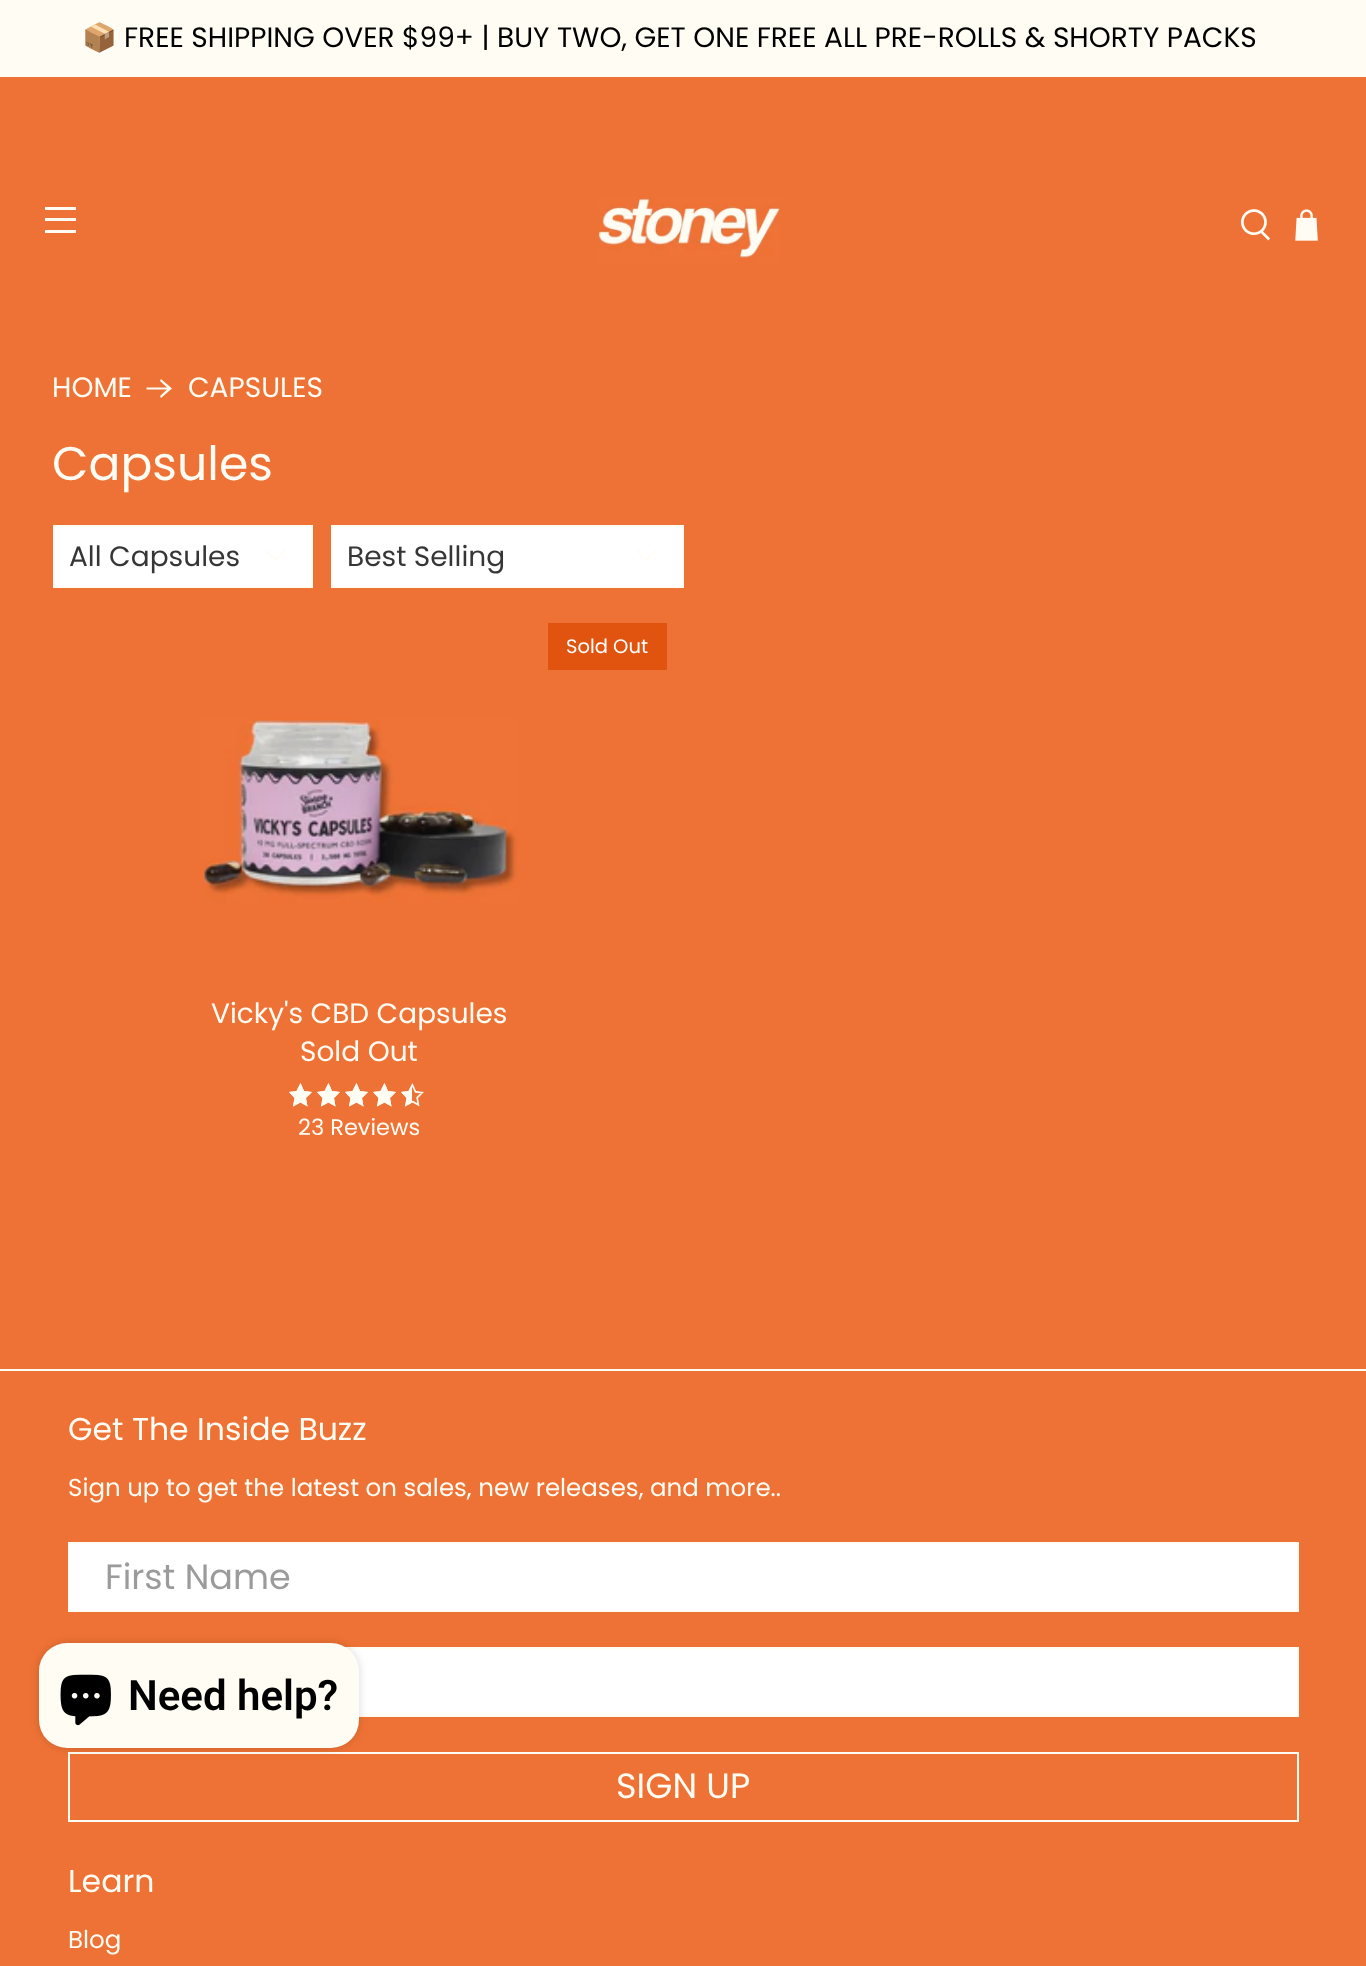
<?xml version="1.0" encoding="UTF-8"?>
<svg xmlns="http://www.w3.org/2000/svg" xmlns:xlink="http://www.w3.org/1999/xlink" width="1366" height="1966">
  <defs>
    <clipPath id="clip1"><path d="M 300.5 1083 l 3.5 8 l 8 1 l -6 6 l 1.5 8.5 l -7 -4 l -7.5 4 l 1.5 -8.5 l -5.5 -6 l 7.5 -1 z" /></clipPath>
    <clipPath id="clip2"><path d="M 328.5 1083 l 3.5 8 l 8 1 l -6 6 l 1.5 8.5 l -7 -4 l -7.5 4 l 1.5 -8.5 l -5.5 -6 l 7.5 -1 z" /></clipPath>
    <clipPath id="clip3"><path d="M 356.5 1083 l 3.5 8 l 8 1 l -6 6 l 1.5 8.5 l -7 -4 l -7.5 4 l 1.5 -8.5 l -5.5 -6 l 7.5 -1 z" /></clipPath>
    <clipPath id="clip4"><path d="M 384.5 1083 l 3.5 8 l 8 1 l -6 6 l 1.5 8.5 l -7 -4 l -7.5 4 l 1.5 -8.5 l -5.5 -6 l 7.5 -1 z" /></clipPath>
    <clipPath id="clip5"><path d="M 412.5 1083 l 3.5 8 l 8 1 l -6 6 l 1.5 8.5 l -7 -4 l -7.5 4 l 1.5 -8.5 l -5.5 -6 l 7.5 -1 z" /></clipPath>
  </defs>
  <rect width="100%" height="100%" fill="#ee7235" />
  <rect width="1366" height="77" fill="#fffcf4" />
  <rect x="45" y="207" width="31" height="3" fill="#fffcf4" />
  <rect x="45" y="218" width="31" height="3" fill="#fffcf4" />
  <rect x="45" y="230" width="31" height="3" fill="#fffcf4" />
  <image x="596" y="196" width="185" height="67" xlink:href="image1.png" />
  <image x="1241" y="209" width="30" height="32" xlink:href="image2.png" />
  <image x="1295" y="209" width="23" height="32" xlink:href="image3.png" />
  <path d="M 161 379 l -1 2 l 7 6.5 h -20.5 v 2 h 20.5 l -7 6.5 l 1 2 l 11 -9.5 z" fill="#fffcf4" />
  <rect x="54" y="526" width="258" height="61" fill="#ffffff" stroke="#fffcf4" stroke-width="2" />
  <path d="M 275.5 561 l -11 -10.5 l 1.5 -1.5 l 9.5 9.5 l 9.5 -9.5 l 1 1.5 z" fill="#fffcf4" />
  <rect x="332" y="526" width="351" height="61" fill="#ffffff" stroke="#fffcf4" stroke-width="2" />
  <path d="M 646.5 561 l -11 -10.5 l 1.5 -1.5 l 9.5 9.5 l 9.5 -9.5 l 1 1.5 z" fill="#fffcf4" />
  <rect x="548" y="623" width="119" height="47" fill="#e1540f" />
  <image x="199" y="718" width="319" height="185" xlink:href="image4.png" />
  <path d="M 300.5 1083 l -4 8 l -7.5 1 l 5.5 6 l -1.5 8.5 l 7.5 -4 l 7 4 l -1.5 -8.5 l 6 -6 l -8 -1 z" fill="#fffcf4" />
  <g clip-path="url(#clip1)">
    <path d="M 300.5 1083 l 3.5 8 l 8 1 l -6 6 l 1.5 8.5 l -7 -4 l -7.5 4 l 1.5 -8.5 l -5.5 -6 l 7.5 -1 z" fill="none" stroke="#fffcf4" stroke-width="3.3" stroke-linecap="round" stroke-linejoin="round" />
  </g>
  <path d="M 328.5 1083 l -4 8 l -7.5 1 l 5.5 6 l -1.5 8.5 l 7.5 -4 l 7 4 l -1.5 -8.5 l 6 -6 l -8 -1 z" fill="#fffcf4" />
  <g clip-path="url(#clip2)">
    <path d="M 328.5 1083 l 3.5 8 l 8 1 l -6 6 l 1.5 8.5 l -7 -4 l -7.5 4 l 1.5 -8.5 l -5.5 -6 l 7.5 -1 z" fill="none" stroke="#fffcf4" stroke-width="3.3" stroke-linecap="round" stroke-linejoin="round" />
  </g>
  <path d="M 356.5 1083 l -4 8 l -7.5 1 l 5.5 6 l -1.5 8.5 l 7.5 -4 l 7 4 l -1.5 -8.5 l 6 -6 l -8 -1 z" fill="#fffcf4" />
  <g clip-path="url(#clip3)">
    <path d="M 356.5 1083 l 3.5 8 l 8 1 l -6 6 l 1.5 8.5 l -7 -4 l -7.5 4 l 1.5 -8.5 l -5.5 -6 l 7.5 -1 z" fill="none" stroke="#fffcf4" stroke-width="3.3" stroke-linecap="round" stroke-linejoin="round" />
  </g>
  <path d="M 384.5 1083 l -4 8 l -7.5 1 l 5.5 6 l -1.5 8.5 l 7.5 -4 l 7 4 l -1.5 -8.5 l 6 -6 l -8 -1 z" fill="#fffcf4" />
  <g clip-path="url(#clip4)">
    <path d="M 384.5 1083 l 3.5 8 l 8 1 l -6 6 l 1.5 8.5 l -7 -4 l -7.5 4 l 1.5 -8.5 l -5.5 -6 l 7.5 -1 z" fill="none" stroke="#fffcf4" stroke-width="3.3" stroke-linecap="round" stroke-linejoin="round" />
  </g>
  <path d="M 412 1084 v 18.5 l -7 4 l 1.5 -8.5 l -5.5 -6 l 7.5 -1 z" fill="#fffcf4" />
  <g clip-path="url(#clip5)">
    <path d="M 412.5 1083 l 3.5 8 l 8 1 l -6 6 l 1.5 8.5 l -7 -4 l -7.5 4 l 1.5 -8.5 l -5.5 -6 l 7.5 -1 z" fill="none" stroke="#fffcf4" stroke-width="3.3" stroke-linecap="round" stroke-linejoin="round" />
  </g>
  <rect y="1369" width="1366" height="2" fill="#fffcf4" />
  <rect x="69" y="1543" width="1229" height="68" fill="#ffffff" stroke="#fffcf4" stroke-width="2" />
  <rect x="348" y="1649" width="949" height="66" fill="#ffffff" />
  <rect x="69" y="1648" width="1229" height="68" fill="none" stroke="#fffcf4" stroke-width="2" />
  <rect x="69" y="1753" width="1229" height="68" fill="none" stroke="#fffcf4" stroke-width="2" />
  <rect x="39" y="1643" width="320" height="105" rx="28" fill="#000000" fill-opacity="0.15" filter="blur(4.5px)" />
  <rect x="39" y="1643" width="320" height="105" rx="28" fill="#fffcf4" />
  <image x="60" y="1674" width="51" height="52" xlink:href="image5.png" />
  <text x="82" y="47" style="font-family: Noto Color Emoji; font-size: 28px; fill: #000000">📦</text>
  <text x="124" y="47" style="font-family: Poppins; font-size: 28px; fill: #000000">FREE SHIPPING OVER $99+ | BUY TWO, GET ONE FREE ALL PRE-ROLLS &amp; SHORTY PACKS</text>
  <text x="52" y="397" style="font-family: Poppins; font-size: 28px; fill: #fffcf4">HOME</text>
  <text x="188" y="397" style="font-family: Poppins; font-size: 28px; fill: #fffcf4">CAPSULES</text>
  <text x="52" y="480" style="font-family: Poppins; font-size: 47.25px; fill: #fffcf4">Capsules</text>
  <text x="69" y="566" style="font-family: Poppins; font-size: 28px; fill: #363636">All Capsules</text>
  <text x="347" y="566" style="font-family: Poppins; font-size: 28px; fill: #363636">Best Selling</text>
  <text x="566" y="653" style="font-family: Poppins; font-size: 19.5px; fill: #ffffff">Sold Out</text>
  <text x="211" y="1023" style="font-family: Poppins; font-size: 28px; fill: #fffcf4">Vicky's CBD Capsules</text>
  <text x="300" y="1061" style="font-family: Poppins; font-size: 28px; fill: #fffcf4">Sold Out</text>
  <text x="298" y="1135" style="font-family: Poppins; font-size: 22.5px; fill: #fffcf4">23 Reviews</text>
  <text x="68" y="1440" style="font-family: Poppins; font-size: 31.5px; fill: #fffcf4">Get The Inside Buzz</text>
  <text x="68" y="1496" style="font-family: Poppins; font-size: 24.5px; fill: #fffcf4">Sign up to get the latest on sales, new releases, and more..</text>
  <text x="105" y="1589" style="font-family: Poppins; font-size: 35px; fill: #9b9b9b">First Name</text>
  <text x="616" y="1798" style="font-family: Poppins; font-size: 35px; fill: #fffcf4">SIGN UP</text>
  <text x="68" y="1892" style="font-family: Poppins; font-size: 31.5px; fill: #fffcf4">Learn</text>
  <text x="68" y="1948" style="font-family: Poppins; font-size: 24.5px; fill: #fffcf4">Blog</text>
  <text x="128" y="1710" style="font-family: Roboto; font-size: 42px; font-weight: 600; fill: #000000">Need help?</text>
</svg>
